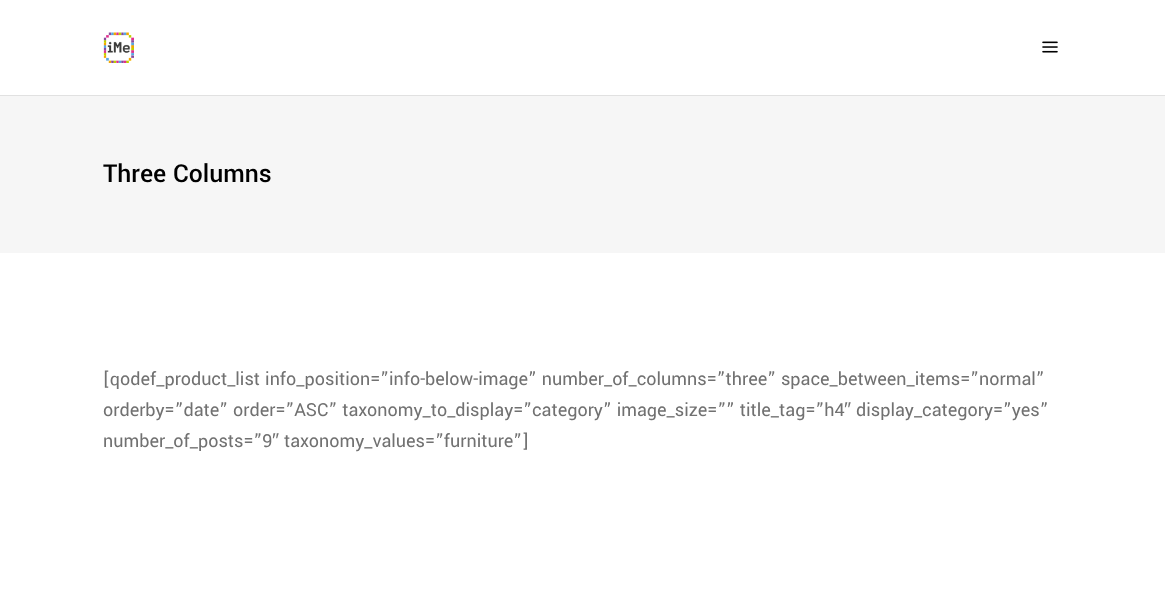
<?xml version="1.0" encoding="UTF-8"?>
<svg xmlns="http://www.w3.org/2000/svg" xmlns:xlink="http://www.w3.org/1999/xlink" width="1165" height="592">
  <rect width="100%" height="100%" fill="#ffffff" />
  <rect y="95" width="1165" height="1" fill="#e1e1e1" />
  <image x="103" y="32" width="31" height="31" xlink:href="image1.png" />
  <image x="1042" y="41" width="16" height="12" xlink:href="image2.png" />
  <rect y="96" width="1165" height="157" fill="#f6f6f6" />
  <text x="103" y="182" style="font-family: Yantramanav; font-size: 27.5px; font-weight: 500; fill: #000000">Three Columns</text>
  <text x="103" y="385" style="font-family: Yantramanav; font-size: 20px; fill: #717171">[qodef_product_list info_position=”info-below-image” number_of_columns=”three” space_between_items=”normal”</text>
  <text x="103" y="416" style="font-family: Yantramanav; font-size: 20px; fill: #717171">orderby=”date” order=”ASC” taxonomy_to_display=”category” image_size=”” title_tag=”h4</text>
  <text x="844" y="416" style="font-family: Liberation Sans; font-size: 20px; fill: #717171">″</text>
  <text x="856" y="416" style="font-family: Yantramanav; font-size: 20px; fill: #717171">display_category=”yes”</text>
  <text x="103" y="447" style="font-family: Yantramanav; font-size: 20px; fill: #717171">number_of_posts=”9</text>
  <text x="272" y="447" style="font-family: Liberation Sans; font-size: 20px; fill: #717171">″</text>
  <text x="284" y="447" style="font-family: Yantramanav; font-size: 20px; fill: #717171">taxonomy_values=”furniture”]</text>
</svg>
